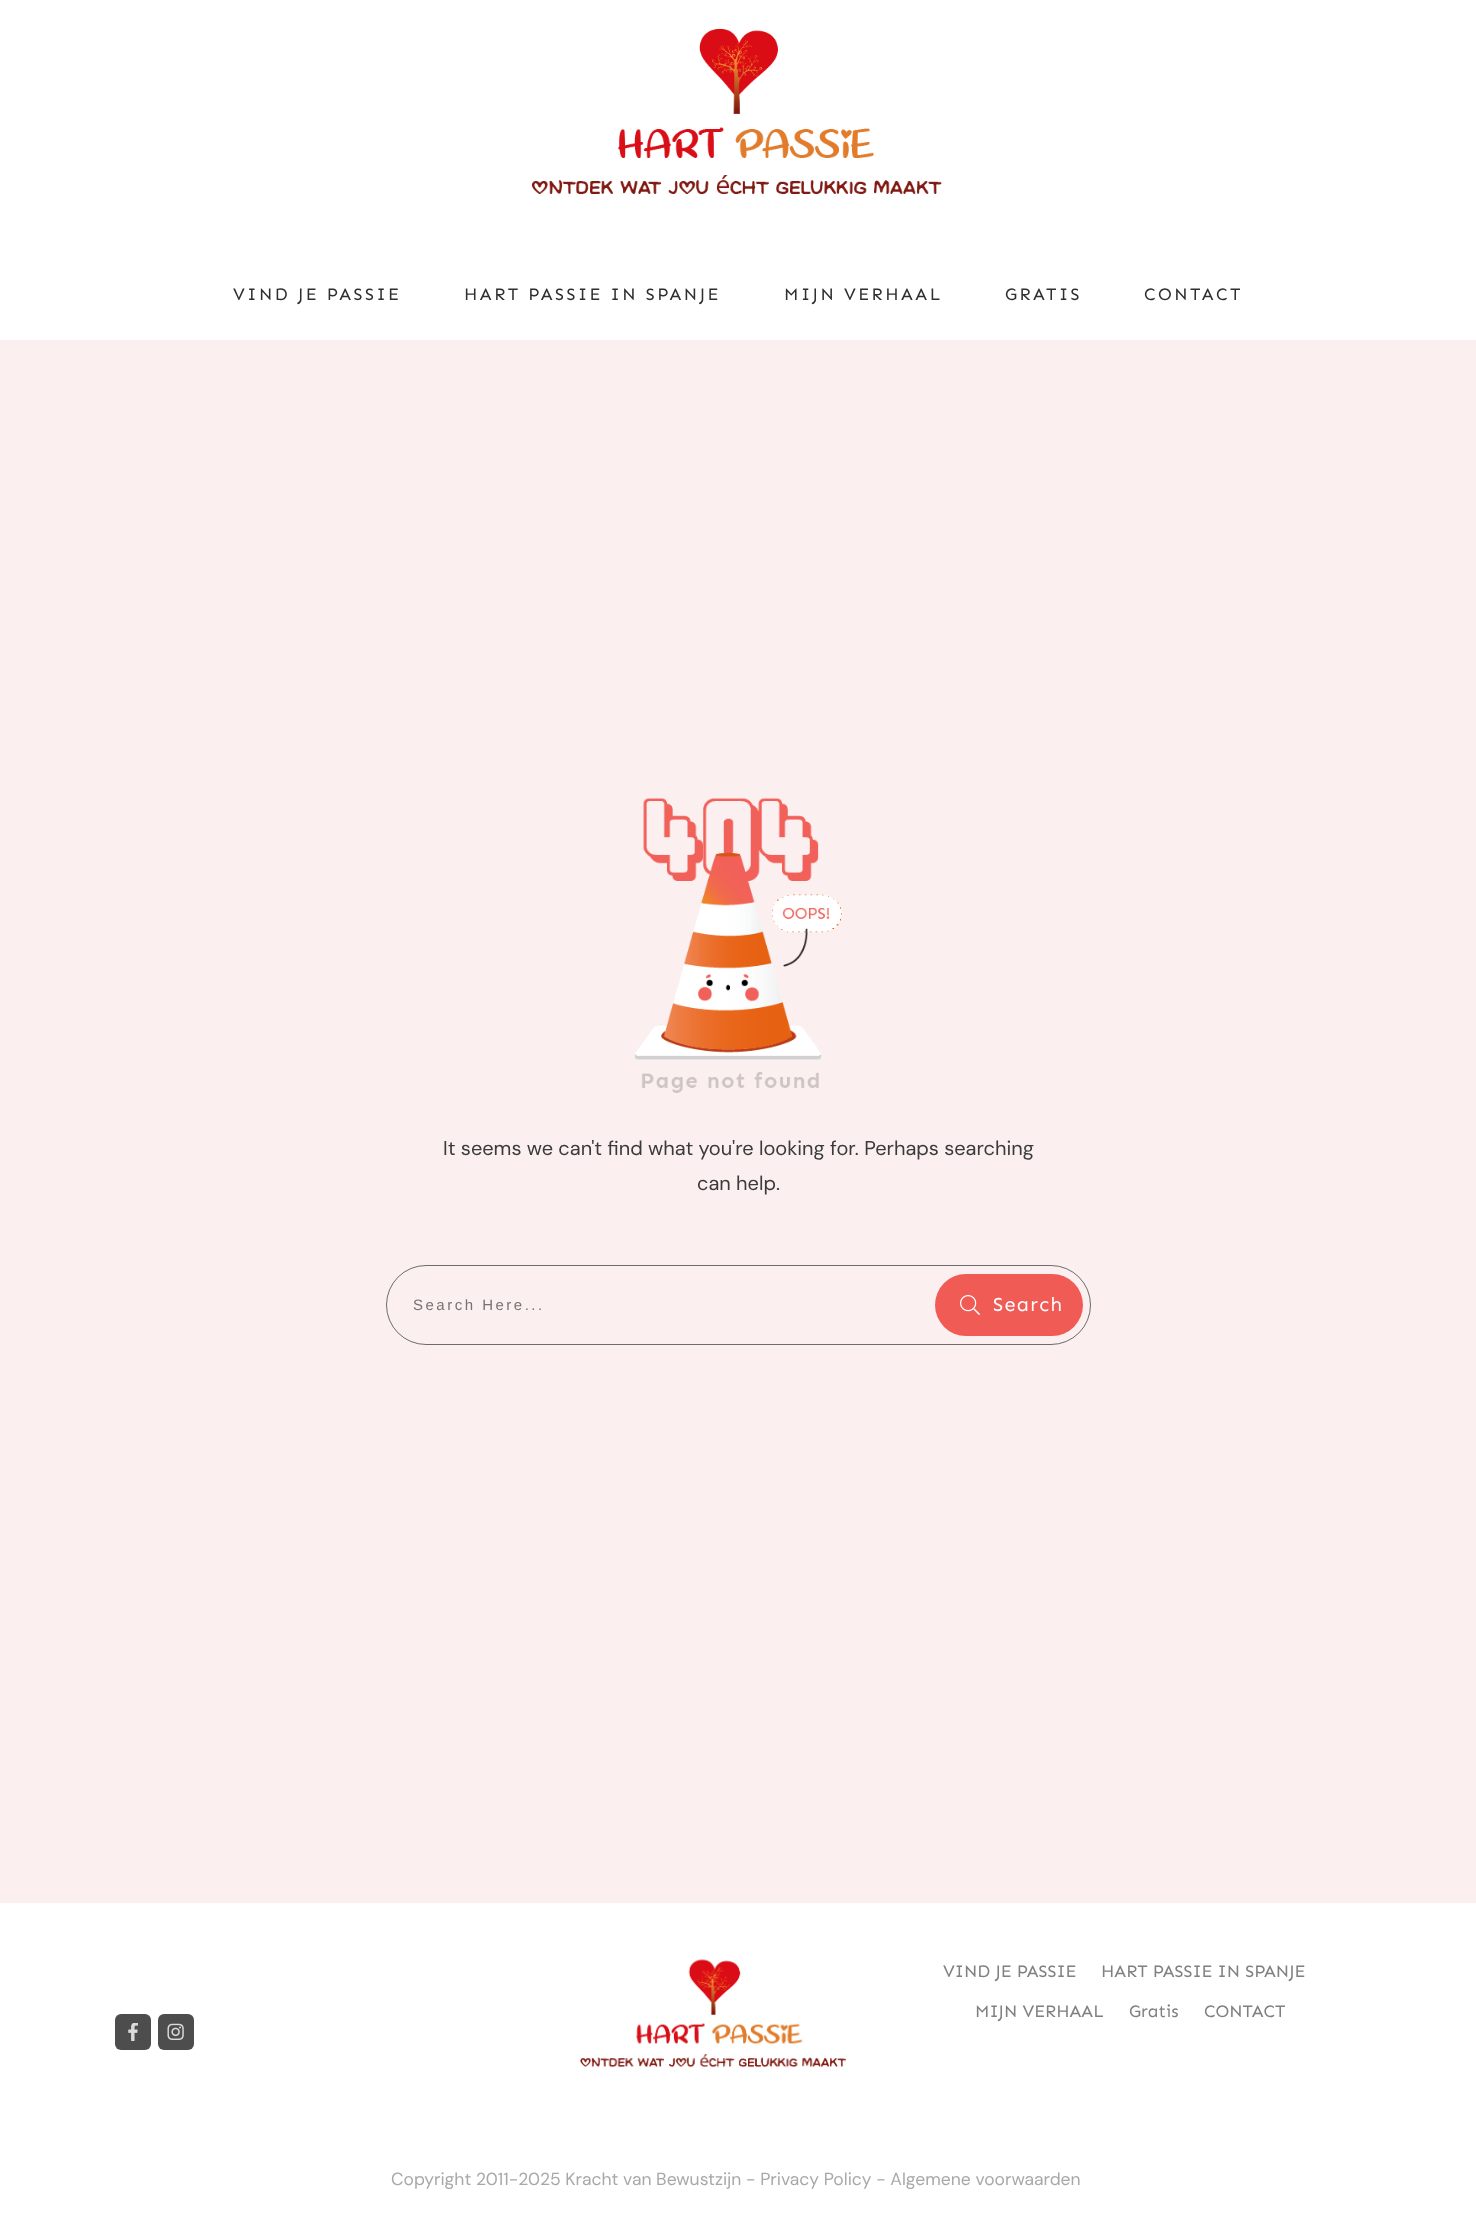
<?xml version="1.0" encoding="UTF-8"?>
<svg xmlns="http://www.w3.org/2000/svg" xmlns:xlink="http://www.w3.org/1999/xlink" width="1476" height="2221">
  <rect width="100%" height="100%" fill="#fbefef" />
  <rect width="1476" height="340" fill="#ffffff" />
  <image x="531" y="28" width="411" height="166" xlink:href="image1.png" />
  <image x="635" y="798" width="207" height="295" xlink:href="image2.png" />
  <rect x="386.5" y="1265.5" width="704" height="79" rx="39.5" fill="none" stroke="#6c6c6c" />
  <rect x="935" y="1274" width="148" height="62" rx="31" fill="#f05b56" />
  <image x="960" y="1295" width="20" height="20" xlink:href="image3.png" />
  <rect y="1903" width="1476" height="318" fill="#ffffff" />
  <image x="580" y="1959" width="267" height="109" xlink:href="image4.png" />
  <rect x="115" y="2014" width="36" height="36" rx="6" fill="#4d4d4d" />
  <image x="128" y="2023" width="10" height="18" xlink:href="image5.png" />
  <rect x="158" y="2014" width="36" height="36" rx="6" fill="#4d4d4d" />
  <image x="167" y="2023" width="17" height="17" xlink:href="image6.png" />
  <text x="233" y="300" style="font-family: Sen; font-size: 17.5px; letter-spacing: 2.5px; fill: #2f2f2f">VIND JE PASSIE</text>
  <text x="464" y="300" style="font-family: Sen; font-size: 17.5px; letter-spacing: 2.5px; fill: #2f2f2f">HART PASSIE IN SPANJE</text>
  <text x="784" y="300" style="font-family: Sen; font-size: 17.5px; letter-spacing: 2.5px; fill: #2f2f2f">MIJN VERHAAL</text>
  <text x="1005" y="300" style="font-family: Sen; font-size: 17.5px; letter-spacing: 2.5px; fill: #2f2f2f">GRATIS</text>
  <text x="1144" y="300" style="font-family: Sen; font-size: 17.5px; letter-spacing: 2.5px; fill: #2f2f2f">CONTACT</text>
  <text x="443" y="1155" style="font-family: DM Sans; font-size: 20px; fill: #3b3b3b">It seems we can't find what you're looking for. Perhaps searching</text>
  <text x="697" y="1190" style="font-family: DM Sans; font-size: 20px; fill: #3b3b3b">can help.</text>
  <text x="413" y="1310" style="font-family: Liberation Sans; font-size: 15px; letter-spacing: 2.5px; fill: #787373">Search Here...</text>
  <text x="993" y="1311" style="font-family: Sen; font-size: 20px; letter-spacing: 1.25px; fill: #ffffff">Search</text>
  <text x="943" y="1977" style="font-family: Sen; font-size: 17.5px; fill: #808080">VIND JE PASSIE</text>
  <text x="1101" y="1977" style="font-family: Sen; font-size: 17.5px; fill: #808080">HART PASSIE IN SPANJE</text>
  <text x="975" y="2017" style="font-family: Sen; font-size: 17.5px; fill: #808080">MIJN VERHAAL</text>
  <text x="1129" y="2017" style="font-family: Sen; font-size: 17.5px; fill: #808080">Gratis</text>
  <text x="1204" y="2017" style="font-family: Sen; font-size: 17.5px; fill: #808080">CONTACT</text>
  <text x="391" y="2185" style="font-family: DM Sans; font-size: 17.5px; fill: #a8a8a8">Copyright 2011-2025 Kracht van Bewustzijn - Privacy Policy - Algemene voorwaarden</text>
</svg>
